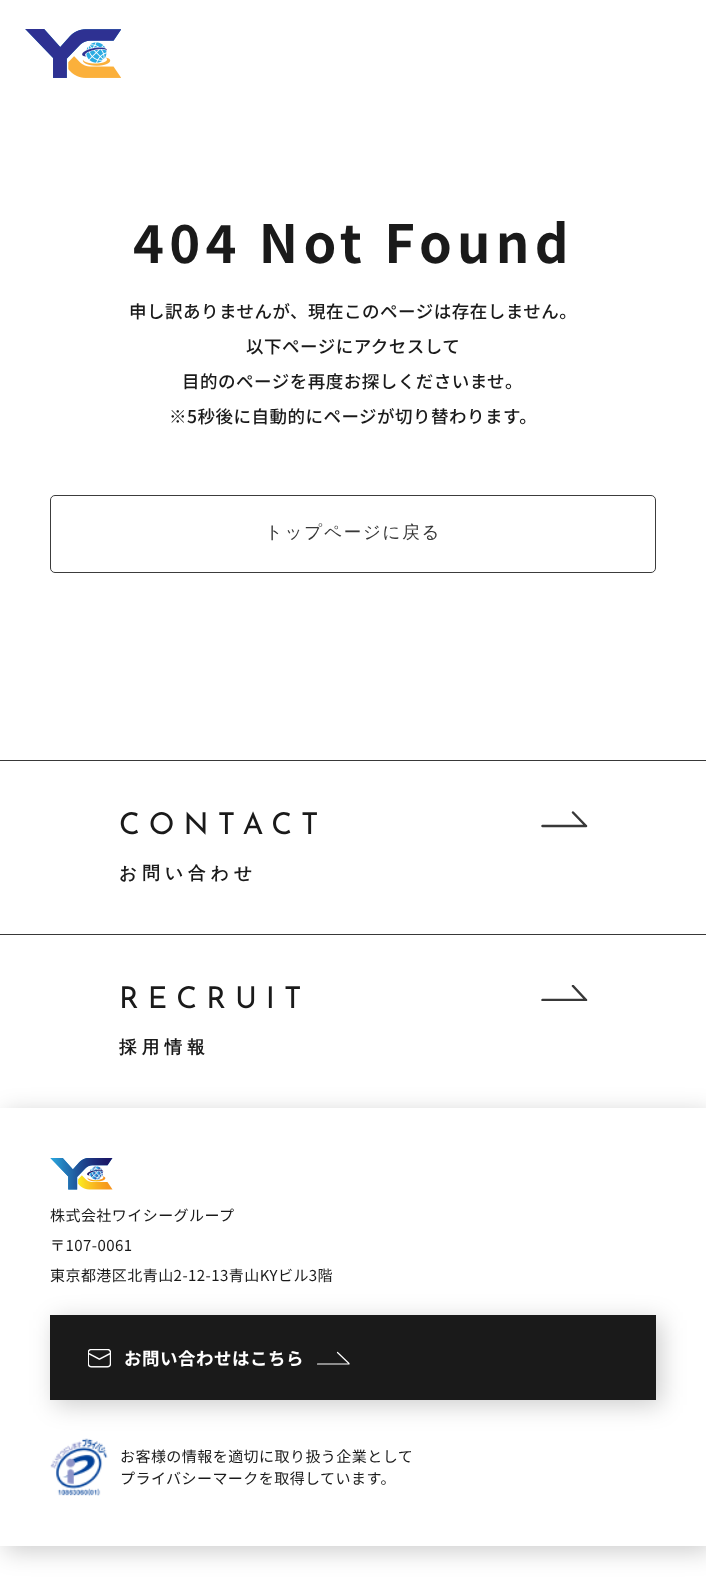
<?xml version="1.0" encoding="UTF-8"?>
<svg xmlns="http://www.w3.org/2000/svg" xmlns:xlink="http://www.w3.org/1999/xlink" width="706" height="1577">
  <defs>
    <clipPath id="clip1"><rect x="541" y="985" width="47" height="16" /></clipPath>
    <clipPath id="clip2"><path d="M 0 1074 h 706 v 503 h -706 z m 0 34 h 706 v 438 h -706 z" clip-rule="evenodd" /></clipPath>
  </defs>
  <rect width="100%" height="100%" fill="#ffffff" />
  <image x="25" y="29" width="96" height="49" xlink:href="image1.png" />
  <rect x="50.5" y="495.5" width="605" height="77" rx="4.5" fill="none" stroke="#3c3c3c" />
  <rect y="760" width="706" height="1" fill="#383838" />
  <rect y="934" width="706" height="1" fill="#383838" />
  <path d="M 573 812.5 l 13 13.5 m -43.5 0 h 43.5" fill="none" stroke="#383838" stroke-width="2.5" stroke-linecap="round" stroke-linejoin="round" />
  <g clip-path="url(#clip1)">
    <path d="M 573 986 l 13 14 m -43.5 0 h 43.5" fill="none" stroke="#383838" stroke-width="2.5" stroke-linecap="round" stroke-linejoin="round" />
  </g>
  <g clip-path="url(#clip2)">
    <rect x="5" y="1113" width="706" height="438" fill="#000000" fill-opacity="0.2" filter="blur(12.5px)" />
  </g>
  <image x="50" y="1158" width="63" height="32" xlink:href="image2.png" />
  <rect x="55" y="1320" width="606" height="85" fill="#000000" fill-opacity="0.2" filter="blur(12.5px)" />
  <rect x="50" y="1315" width="606" height="85" fill="#1a1a1a" />
  <image x="88" y="1349" width="23" height="19" xlink:href="image3.png" />
  <path d="M 337.5 1352.5 l 11.5 11 m -31.5 0.5 h 31.5" fill="none" stroke="#ffffff" stroke-width="1.2" stroke-linecap="round" stroke-linejoin="round" />
  <image x="50" y="1438" width="58" height="58" xlink:href="image4.png" />
  <text x="133" y="263" style="font-family: Noto Sans JP; font-size: 52.5px; font-weight: bold; letter-spacing: 5.25px; fill: #1a1a1a">404 Not Found</text>
  <text x="129" y="318" style="font-family: Noto Sans JP; font-size: 17.5px; font-weight: 500; letter-spacing: 0.5px; fill: #1a1a1a">申し訳ありませんが、現在このページは存在しません。</text>
  <text x="246" y="353" style="font-family: Noto Sans JP; font-size: 17.5px; font-weight: 500; letter-spacing: 0.5px; fill: #1a1a1a">以下ページにアクセスして</text>
  <text x="182" y="388" style="font-family: Noto Sans JP; font-size: 17.5px; font-weight: 500; letter-spacing: 0.5px; fill: #1a1a1a">目的のページを再度お探しくださいませ。</text>
  <text x="169" y="423" style="font-family: Noto Sans JP; font-size: 17.5px; font-weight: 500; letter-spacing: 0.5px; fill: #1a1a1a">※5秒後に自動的にページが切り替わります。</text>
  <text x="265" y="538" style="font-family: WenQuanYi Zen Hei; font-size: 17.5px; font-weight: 500; letter-spacing: 1.75px; fill: #383838">トップページに戻る</text>
  <text x="119" y="834" style="font-family: Josefin Sans; font-size: 30px; letter-spacing: 9px; fill: #1a1a1a">CONTACT</text>
  <text x="119" y="879" style="font-family: WenQuanYi Zen Hei; font-size: 17.5px; font-weight: bold; letter-spacing: 5.25px; fill: #1a1a1a">お問い合わせ</text>
  <text x="119" y="1008" style="font-family: Josefin Sans; font-size: 30px; letter-spacing: 9px; fill: #1a1a1a">RECRUIT</text>
  <text x="119" y="1053" style="font-family: WenQuanYi Zen Hei; font-size: 17.5px; font-weight: bold; letter-spacing: 5.25px; fill: #1a1a1a">採用情報</text>
  <text x="50" y="1221" style="font-family: Noto Sans JP; font-size: 15px; letter-spacing: 0.45px; fill: #1a1a1a">株式会社ワイシーグループ</text>
  <text x="50" y="1251" style="font-family: Noto Sans JP; font-size: 15px; letter-spacing: 0.45px; fill: #1a1a1a">〒107-0061</text>
  <text x="50" y="1281" style="font-family: Noto Sans JP; font-size: 15px; letter-spacing: 0.45px; fill: #1a1a1a">東京都港区北青山2-12-13青山KYビル3階</text>
  <text x="124" y="1365" style="font-family: Noto Sans JP; font-size: 17.5px; font-weight: bold; letter-spacing: 0.5px; fill: #ffffff">お問い合わせはこちら</text>
  <text x="120" y="1462" style="font-family: Noto Sans JP; font-size: 15px; letter-spacing: 0.45px; fill: #1a1a1a">お客様の情報を適切に取り扱う企業として</text>
  <text x="120" y="1484" style="font-family: Noto Sans JP; font-size: 15px; letter-spacing: 0.45px; fill: #1a1a1a">プライバシーマークを取得しています。</text>
</svg>
